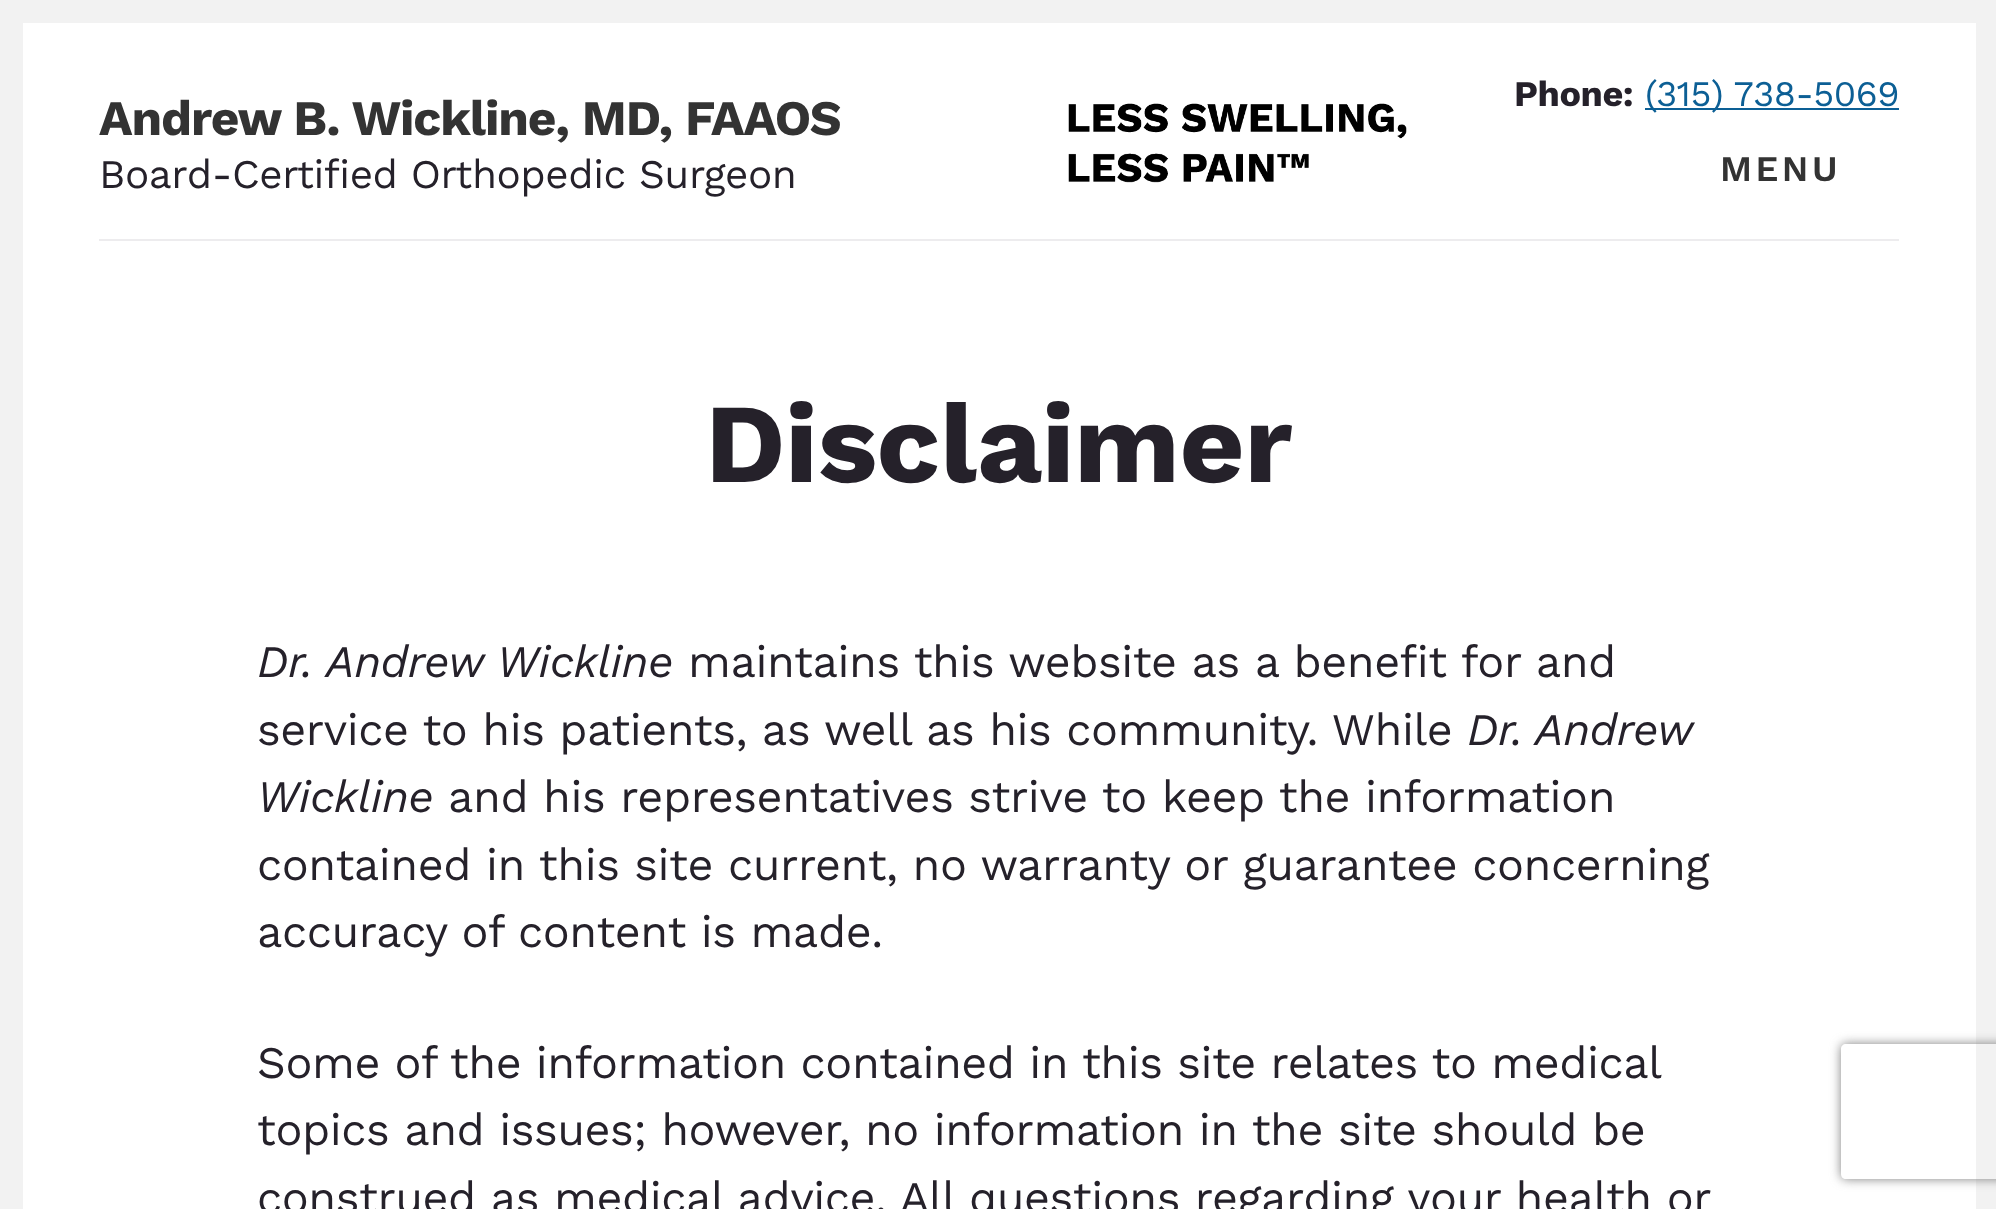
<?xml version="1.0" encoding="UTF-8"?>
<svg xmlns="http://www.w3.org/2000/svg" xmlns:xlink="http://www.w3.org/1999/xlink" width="1996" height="1209">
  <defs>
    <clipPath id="clip1"><path d="M 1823 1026 h 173 v 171 h -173 z m 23 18 h 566 c 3 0 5 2 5 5 v 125 c 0 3 -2 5 -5 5 h -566 c -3 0 -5 -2 -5 -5 v -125 c 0 -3 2 -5 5 -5 z" clip-rule="evenodd" /></clipPath>
  </defs>
  <rect width="100%" height="100%" fill="#f2f2f2" />
  <rect x="23" y="23" width="1953" height="1186" fill="#ffffff" />
  <rect x="99" y="239" width="1800" height="2" fill="#edecee" />
  <rect x="1645" y="108" width="254" height="2" fill="#0c5f95" />
  <image x="1068" y="103" width="339" height="80" xlink:href="image1.png" />
  <g clip-path="url(#clip1)">
    <rect x="1841" y="1044" width="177" height="135" rx="5" fill="#808080" filter="blur(5.5px)" />
  </g>
  <text x="99" y="135" style="font-family: Work Sans; font-size: 49.5px; font-weight: bold; letter-spacing: -1.1px; fill: #333333">Andrew B. Wickline, MD, FAAOS</text>
  <text x="99" y="188" style="font-family: Work Sans; font-size: 40.5px; letter-spacing: -0.45px; fill: #25212a">Board-Certified Orthopedic Surgeon</text>
  <text x="1514" y="106" style="font-family: Work Sans; font-size: 36px; font-weight: bold; letter-spacing: -0.45px; fill: #25212a">Phone:</text>
  <text x="1645" y="106" style="font-family: Work Sans; font-size: 36px; letter-spacing: -0.45px; fill: #0c5f95">(315) 738-5069</text>
  <text x="1720" y="181" style="font-family: Work Sans; font-size: 36px; font-weight: 600; letter-spacing: 3.5px; fill: #333333">MENU</text>
  <text x="705" y="482" style="font-family: Work Sans; font-size: 112.5px; font-weight: bold; letter-spacing: -0.45px; fill: #25212a">Disclaimer</text>
  <text x="257" y="677" style="font-family: Work Sans; font-size: 45px; font-style: italic; letter-spacing: -0.45px; fill: #25212a">Dr. Andrew Wickline</text>
  <text x="688" y="677" style="font-family: Work Sans; font-size: 45px; letter-spacing: -0.45px; fill: #25212a">maintains this website as a benefit for and</text>
  <text x="257" y="745" style="font-family: Work Sans; font-size: 45px; letter-spacing: -0.45px; fill: #25212a">service to his patients, as well as his community. While</text>
  <text x="1467" y="745" word-spacing="-1" style="font-family: Work Sans; font-size: 45px; font-style: italic; letter-spacing: -0.45px; fill: #25212a">Dr. Andrew</text>
  <text x="257" y="812" style="font-family: Work Sans; font-size: 45px; font-style: italic; letter-spacing: -0.45px; fill: #25212a">Wickline</text>
  <text x="448" y="812" style="font-family: Work Sans; font-size: 45px; letter-spacing: -0.45px; fill: #25212a">and his representatives strive to keep the information</text>
  <text x="257" y="880" style="font-family: Work Sans; font-size: 45px; letter-spacing: -0.45px; fill: #25212a">contained in this site current, no warranty or guarantee concerning</text>
  <text x="257" y="947" style="font-family: Work Sans; font-size: 45px; letter-spacing: -0.45px; fill: #25212a">accuracy of content is made.</text>
  <text x="257" y="1078" word-spacing="-0.25" style="font-family: Work Sans; font-size: 45px; letter-spacing: -0.45px; fill: #25212a">Some of the information contained in this site relates to medical</text>
  <text x="257" y="1145" style="font-family: Work Sans; font-size: 45px; letter-spacing: -0.45px; fill: #25212a">topics and issues; however, no information in the site should be</text>
  <text x="257" y="1213" style="font-family: Work Sans; font-size: 45px; letter-spacing: -0.45px; fill: #25212a">construed as medical advice. All questions regarding your health or</text>
</svg>
